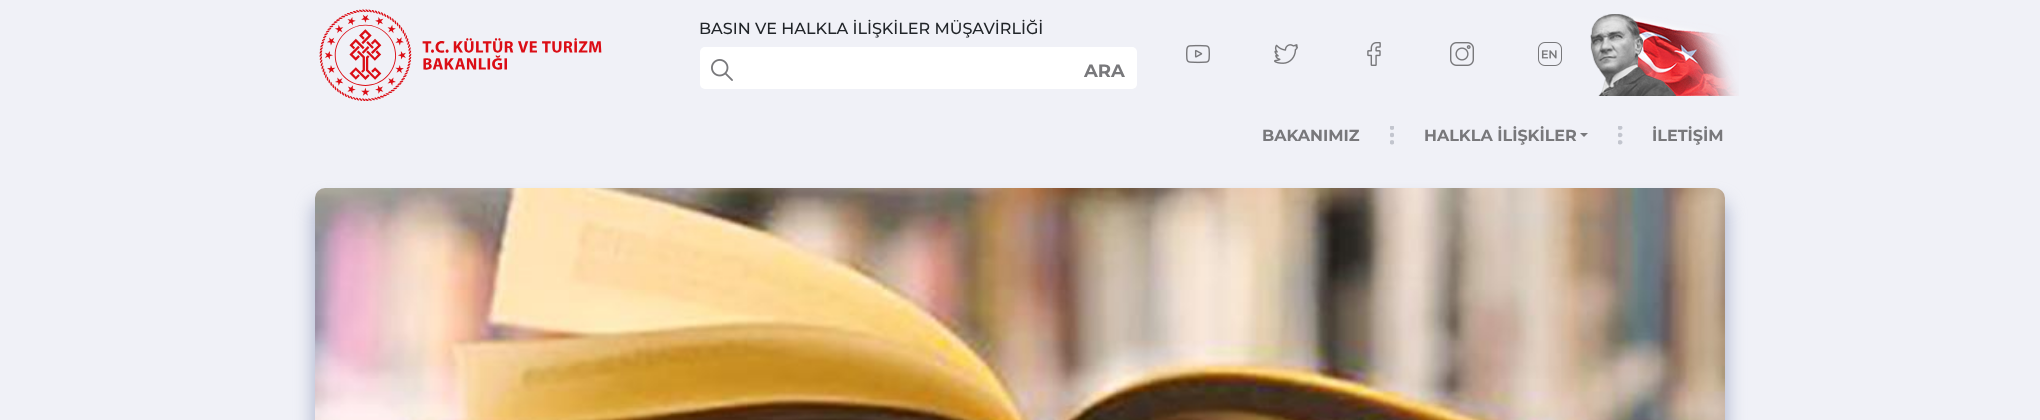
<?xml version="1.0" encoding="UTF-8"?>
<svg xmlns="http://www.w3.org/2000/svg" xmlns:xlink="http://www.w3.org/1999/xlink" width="2040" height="420">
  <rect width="100%" height="100%" fill="#f0f1f7" />
  <image x="319" y="9" width="283" height="92" xlink:href="image1.png" />
  <rect x="700" y="47" width="437" height="42" rx="5" fill="#ffffff" />
  <image x="711" y="59" width="22" height="22" xlink:href="image2.png" />
  <image x="1186" y="44" width="24" height="20" xlink:href="image3.png" />
  <image x="1274" y="44" width="24" height="20" xlink:href="image4.png" />
  <image x="1367" y="42" width="14" height="24" xlink:href="image5.png" />
  <image x="1450" y="42" width="24" height="24" xlink:href="image6.png" />
  <image x="1538" y="42" width="24" height="24" xlink:href="image7.png" />
  <image x="1590" y="14" width="149" height="82" xlink:href="image8.png" />
  <image x="1390" y="126" width="4" height="19" xlink:href="image9.png" />
  <path d="M 1580 133 h 8 l -4 4 z" fill="#78797c" />
  <image x="1618" y="126" width="5" height="19" xlink:href="image10.png" />
  <rect x="313" y="201" width="1414" height="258" rx="12" fill="#95a1c1" fill-opacity="0.73" filter="blur(9px)" />
  <image x="315" y="188" width="1410" height="232" xlink:href="image11.png" />
  <text x="699" y="34" style="font-family: Montserrat; font-size: 16px; font-weight: 500; fill: #212529">BASIN VE HALKLA İLİŞKİLER MÜŞAVİRLİĞİ</text>
  <text x="1084" y="77" style="font-family: Montserrat; font-size: 18px; font-weight: bold; fill: #78787b">ARA</text>
  <text x="1262" y="141" style="font-family: Montserrat; font-size: 16px; font-weight: bold; fill: #78787b">BAKANIMIZ</text>
  <text x="1424" y="141" style="font-family: Montserrat; font-size: 16px; font-weight: bold; fill: #78787b">HALKLA İLİŞKİLER</text>
  <text x="1652" y="141" style="font-family: Montserrat; font-size: 16px; font-weight: bold; fill: #78787b">İLETİŞİM</text>
</svg>
